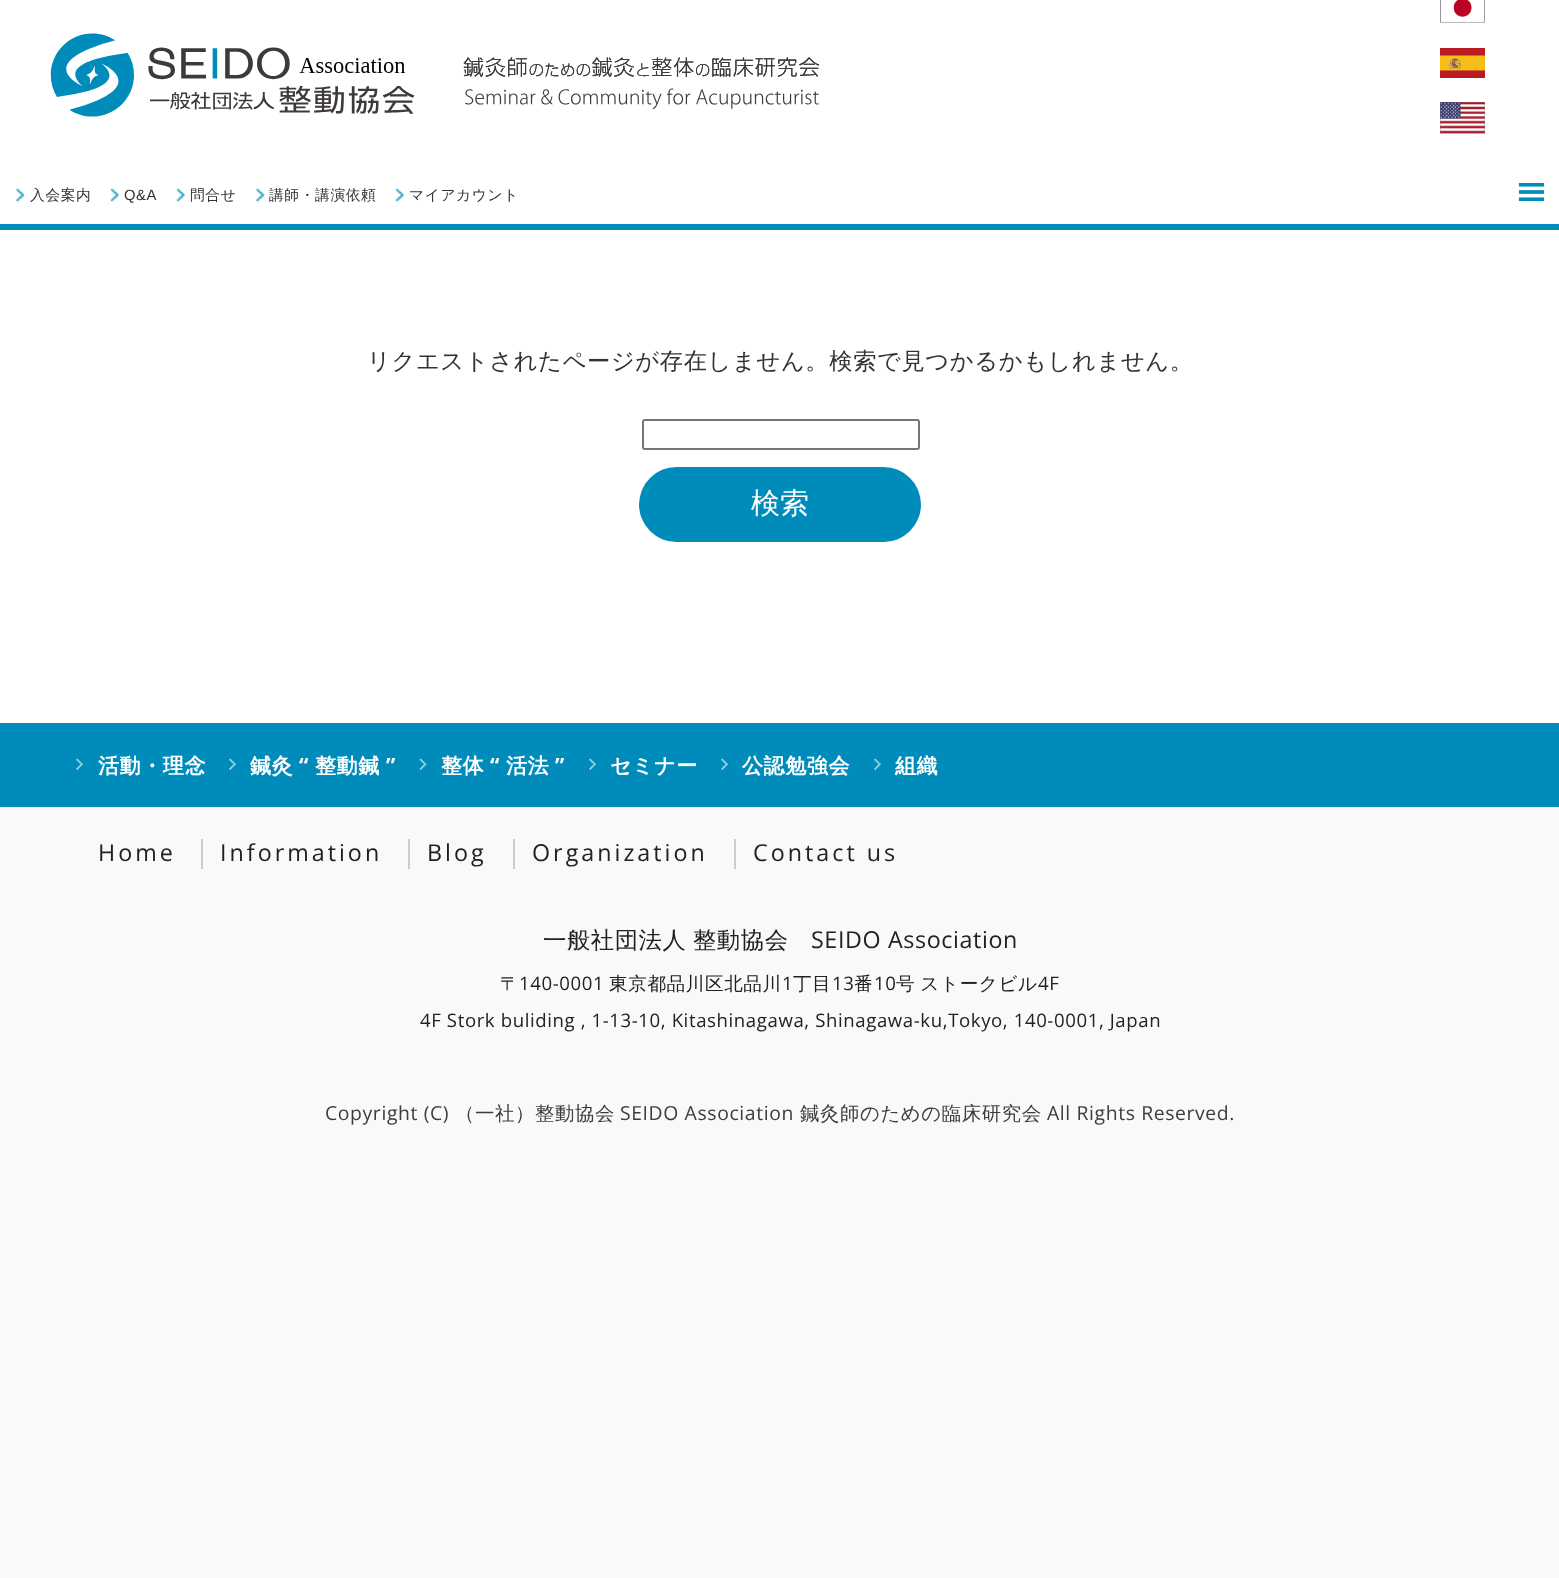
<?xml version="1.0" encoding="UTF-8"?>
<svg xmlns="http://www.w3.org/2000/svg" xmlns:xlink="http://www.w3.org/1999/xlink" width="1559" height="1578">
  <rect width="100%" height="100%" fill="#f9f9f9" />
  <rect width="1559" height="723" fill="#ffffff" />
  <image x="50" y="33" width="365" height="84" xlink:href="image1.png" />
  <image x="463" y="57" width="357" height="53" xlink:href="image2.png" />
  <image x="1440" y="0" width="45" height="23" xlink:href="image3.png" />
  <image x="1440" y="48" width="45" height="30" xlink:href="image4.png" />
  <image x="1440" y="102" width="45" height="32" xlink:href="image5.png" />
  <image x="16" y="188" width="9" height="14" xlink:href="image6.png" />
  <image x="110" y="188" width="9" height="14" xlink:href="image7.png" />
  <image x="176" y="188" width="9" height="14" xlink:href="image7.png" />
  <image x="256" y="188" width="9" height="14" xlink:href="image6.png" />
  <image x="395" y="188" width="9" height="14" xlink:href="image8.png" />
  <image x="1518" y="183" width="27" height="18" xlink:href="image9.png" />
  <rect y="224" width="1559" height="6" fill="#008cbb" />
  <rect x="643" y="420" width="276" height="29" rx="2" fill="none" stroke="#767676" stroke-width="2" />
  <rect x="639" y="467" width="282" height="75" rx="37.5" fill="#008cbb" />
  <rect y="723" width="1559" height="84" fill="#008cbb" />
  <image x="76" y="758" width="7" height="12" xlink:href="image10.png" />
  <image x="229" y="758" width="7" height="12" xlink:href="image10.png" />
  <image x="419" y="758" width="8" height="12" xlink:href="image11.png" />
  <image x="589" y="758" width="7" height="12" xlink:href="image12.png" />
  <image x="721" y="758" width="7" height="12" xlink:href="image12.png" />
  <image x="874" y="758" width="7" height="12" xlink:href="image10.png" />
  <rect x="201" y="839" width="2" height="30" fill="#cccccc" />
  <rect x="408" y="839" width="2" height="30" fill="#cccccc" />
  <rect x="513" y="839" width="2" height="30" fill="#cccccc" />
  <rect x="734" y="839" width="2" height="30" fill="#cccccc" />
  <text x="30" y="200" style="font-family: WenQuanYi Zen Hei; font-size: 14.75px; font-weight: 500; letter-spacing: 0.6px; fill: #333333">入会案内</text>
  <text x="124" y="200" style="font-family: Liberation Sans; font-size: 14.75px; letter-spacing: 0.6px; fill: #333333">Q&amp;A</text>
  <text x="190" y="200" style="font-family: WenQuanYi Zen Hei; font-size: 14.75px; font-weight: 500; letter-spacing: 0.6px; fill: #333333">問合せ</text>
  <text x="269" y="200" style="font-family: WenQuanYi Zen Hei; font-size: 14.75px; font-weight: 500; letter-spacing: 0.6px; fill: #333333">講師・講演依頼</text>
  <text x="409" y="200" style="font-family: WenQuanYi Zen Hei; font-size: 14.75px; font-weight: 500; letter-spacing: 0.6px; fill: #333333">マイアカウント</text>
  <text x="367" y="369" style="font-family: WenQuanYi Zen Hei; font-size: 23.3px; font-weight: 500; letter-spacing: 0.6px; fill: #333333">リクエストされたページが存在しません。検索で見つかるかもしれません。</text>
  <text x="751" y="513" style="font-family: WenQuanYi Zen Hei; font-size: 29px; font-weight: 500; fill: #ffffff">検索</text>
  <text x="98" y="773" style="font-family: WenQuanYi Zen Hei; font-size: 21px; font-weight: bold; letter-spacing: 0.6px; fill: #ffffff">活動・理念</text>
  <text x="250" y="773" style="font-family: WenQuanYi Zen Hei; font-size: 21px; font-weight: bold; letter-spacing: 0.6px; fill: #ffffff">鍼灸</text>
  <text x="299" y="773" style="font-family: Open Sans; font-size: 21px; font-weight: bold; letter-spacing: 0.6px; fill: #ffffff">“</text>
  <text x="315" y="773" style="font-family: WenQuanYi Zen Hei; font-size: 21px; font-weight: bold; letter-spacing: 0.6px; fill: #ffffff">整動鍼</text>
  <text x="386" y="773" style="font-family: Open Sans; font-size: 21px; font-weight: bold; letter-spacing: 0.6px; fill: #ffffff">”</text>
  <text x="441" y="773" style="font-family: WenQuanYi Zen Hei; font-size: 21px; font-weight: bold; letter-spacing: 0.6px; fill: #ffffff">整体</text>
  <text x="490" y="773" style="font-family: Open Sans; font-size: 21px; font-weight: bold; letter-spacing: 0.6px; fill: #ffffff">“</text>
  <text x="506" y="773" style="font-family: WenQuanYi Zen Hei; font-size: 21px; font-weight: bold; letter-spacing: 0.6px; fill: #ffffff">活法</text>
  <text x="555" y="773" style="font-family: Open Sans; font-size: 21px; font-weight: bold; letter-spacing: 0.6px; fill: #ffffff">”</text>
  <text x="610" y="773" style="font-family: WenQuanYi Zen Hei; font-size: 21px; font-weight: bold; letter-spacing: 0.6px; fill: #ffffff">セミナー</text>
  <text x="742" y="773" style="font-family: WenQuanYi Zen Hei; font-size: 21px; font-weight: bold; letter-spacing: 0.6px; fill: #ffffff">公認勉強会</text>
  <text x="895" y="773" style="font-family: WenQuanYi Zen Hei; font-size: 21px; font-weight: bold; letter-spacing: 0.6px; fill: #ffffff">組織</text>
  <text x="98" y="861" style="font-family: Open Sans; font-size: 23.3px; letter-spacing: 3px; fill: #212121">Home</text>
  <text x="220" y="861" style="font-family: Open Sans; font-size: 23.3px; letter-spacing: 3px; fill: #212121">Information</text>
  <text x="427" y="861" style="font-family: Open Sans; font-size: 23.3px; letter-spacing: 3px; fill: #212121">Blog</text>
  <text x="532" y="861" style="font-family: Open Sans; font-size: 23.3px; letter-spacing: 3px; fill: #212121">Organization</text>
  <text x="753" y="861" style="font-family: Open Sans; font-size: 23.3px; letter-spacing: 3px; fill: #212121">Contact us</text>
  <text x="543" y="948" word-spacing="-1" style="font-family: WenQuanYi Zen Hei; font-size: 23.3px; font-weight: 500; letter-spacing: 0.6px; fill: #212121">一般社団法人 整動協会</text>
  <text x="811" y="948" style="font-family: Open Sans; font-size: 23.3px; letter-spacing: 0.6px; fill: #212121">SEIDO Association</text>
  <text x="500" y="990" style="font-family: WenQuanYi Zen Hei; font-size: 18.6px; font-weight: 500; letter-spacing: 0.6px; fill: #212121">〒</text>
  <text x="519" y="990" style="font-family: Open Sans; font-size: 18.6px; letter-spacing: 0.6px; fill: #212121">140-0001</text>
  <text x="609" y="990" style="font-family: WenQuanYi Zen Hei; font-size: 18.6px; font-weight: 500; letter-spacing: 0.6px; fill: #212121">東京都品川区北品川</text>
  <text x="782" y="990" style="font-family: Open Sans; font-size: 18.6px; letter-spacing: 0.6px; fill: #212121">1</text>
  <text x="793" y="990" style="font-family: WenQuanYi Zen Hei; font-size: 18.6px; font-weight: 500; letter-spacing: 0.6px; fill: #212121">丁目</text>
  <text x="832" y="990" style="font-family: Open Sans; font-size: 18.6px; letter-spacing: 0.6px; fill: #212121">13</text>
  <text x="854" y="990" style="font-family: WenQuanYi Zen Hei; font-size: 18.6px; font-weight: 500; letter-spacing: 0.6px; fill: #212121">番</text>
  <text x="874" y="990" style="font-family: Open Sans; font-size: 18.6px; letter-spacing: 0.6px; fill: #212121">10</text>
  <text x="896" y="990" word-spacing="-1" style="font-family: WenQuanYi Zen Hei; font-size: 18.6px; font-weight: 500; letter-spacing: 0.6px; fill: #212121">号 ストークビル</text>
  <text x="1038" y="990" style="font-family: Open Sans; font-size: 18.6px; letter-spacing: 0.6px; fill: #212121">4F</text>
  <text x="420" y="1027" style="font-family: Open Sans; font-size: 18.6px; letter-spacing: 0.6px; fill: #212121">4F Stork buliding , 1-13-10, Kitashinagawa, Shinagawa-ku,Tokyo, 140-0001, Japan</text>
  <text x="325" y="1120" style="font-family: Open Sans; font-size: 19.4px; letter-spacing: 0.6px; fill: #3d3d3d">Copyright (C)</text>
  <text x="455" y="1120" style="font-family: WenQuanYi Zen Hei; font-size: 19.4px; font-weight: 500; letter-spacing: 0.6px; fill: #3d3d3d">（一社）整動協会</text>
  <text x="620" y="1120" style="font-family: Open Sans; font-size: 19.4px; letter-spacing: 0.6px; fill: #3d3d3d">SEIDO Association</text>
  <text x="800" y="1120" style="font-family: WenQuanYi Zen Hei; font-size: 19.4px; font-weight: 500; letter-spacing: 0.6px; fill: #3d3d3d">鍼灸師のための臨床研究会</text>
  <text x="1047" y="1120" style="font-family: Open Sans; font-size: 19.4px; letter-spacing: 0.6px; fill: #3d3d3d">All Rights Reserved.</text>
</svg>
